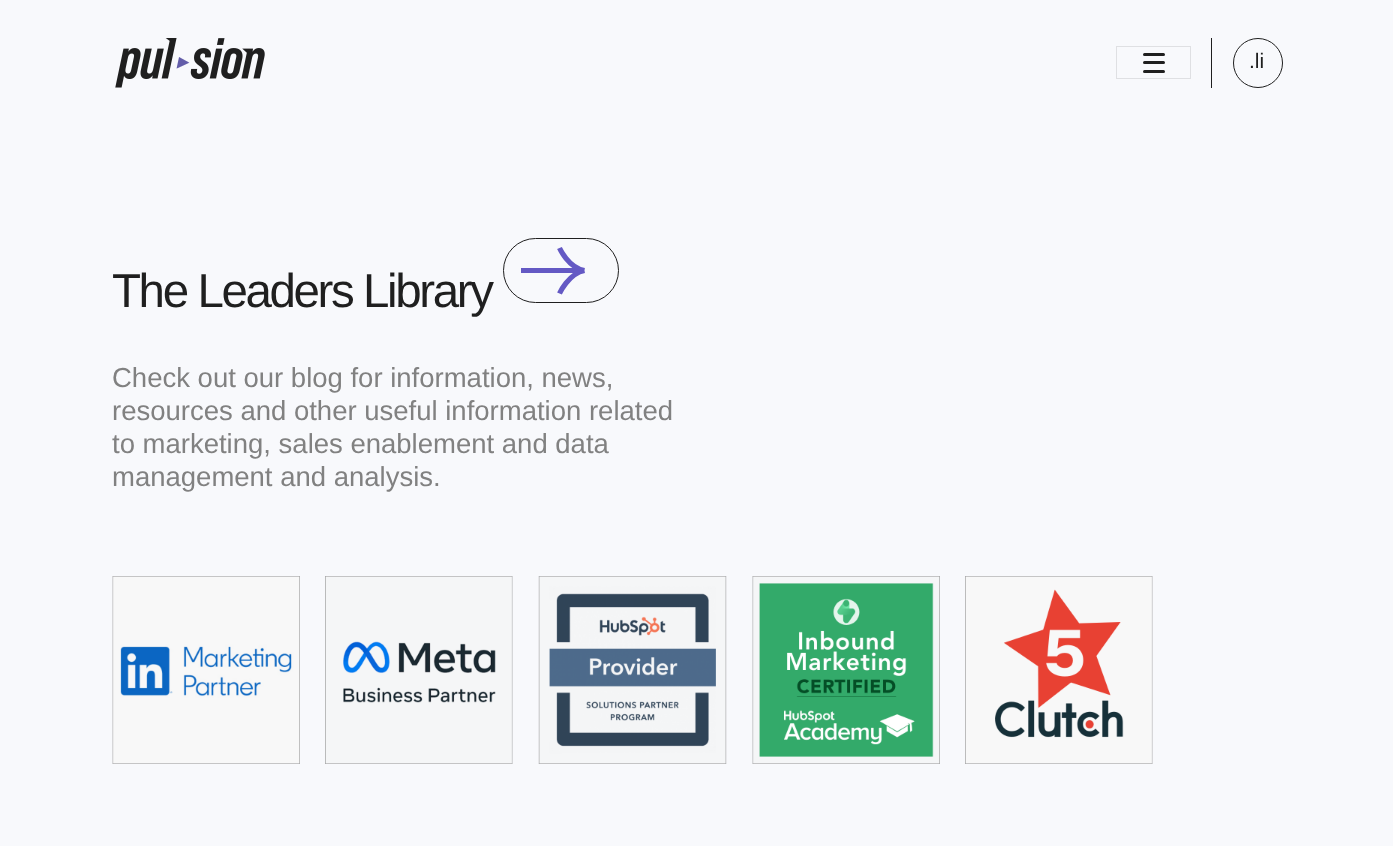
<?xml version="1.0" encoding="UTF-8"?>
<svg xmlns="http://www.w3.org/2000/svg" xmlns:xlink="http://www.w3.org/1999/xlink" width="1393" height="846">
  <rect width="100%" height="100%" fill="#f8f9fc" />
  <image x="115" y="38" width="150" height="50" xlink:href="image1.png" />
  <rect x="1116.5" y="46.5" width="74" height="32" fill="none" stroke="#dfe0e3" />
  <rect x="1143" y="53" width="22" height="3" rx="1.5" fill="#1f1f1f" />
  <rect x="1143" y="61" width="22" height="3" rx="1.5" fill="#1f1f1f" />
  <rect x="1143" y="70" width="22" height="3" rx="1.5" fill="#1f1f1f" />
  <rect x="1211" y="38" width="1" height="50" fill="#1f1f1f" />
  <circle cx="1258" cy="63" r="24.5" fill="none" stroke="#1f1f1f" />
  <rect x="503.5" y="238.5" width="115" height="64" rx="32" fill="none" stroke="#1f1f1f" />
  <path d="M 559.5 248 c 0 0 9 20 25 22.5 m 0 0 h -63.5 m 63.5 0 c -16 3 -25 23 -25 23" fill="none" stroke="#6459c4" stroke-width="5.2" />
  <image x="112" y="576" width="188" height="188" xlink:href="image2.png" />
  <image x="325" y="576" width="188" height="188" xlink:href="image3.png" />
  <image x="538" y="576" width="189" height="188" xlink:href="image4.png" />
  <image x="752" y="576" width="188" height="188" xlink:href="image5.png" />
  <image x="965" y="576" width="188" height="188" xlink:href="image6.png" />
  <text x="1249" y="68" style="font-family: Liberation Sans; font-size: 21px; fill: #1f1f1f">.li</text>
  <text x="112" y="307" style="font-family: Liberation Sans; font-size: 47.5px; letter-spacing: -2.4px; fill: #1f1f1f">The Leaders Library</text>
  <text x="112" y="387" style="font-family: Liberation Sans; font-size: 27.5px; fill: #818181">Check out our blog for information, news,</text>
  <text x="112" y="420" style="font-family: Liberation Sans; font-size: 27.5px; fill: #818181">resources and other useful information related</text>
  <text x="112" y="453" style="font-family: Liberation Sans; font-size: 27.5px; fill: #818181">to marketing, sales enablement and data</text>
  <text x="112" y="486" style="font-family: Liberation Sans; font-size: 27.5px; fill: #818181">management and analysis.</text>
</svg>
